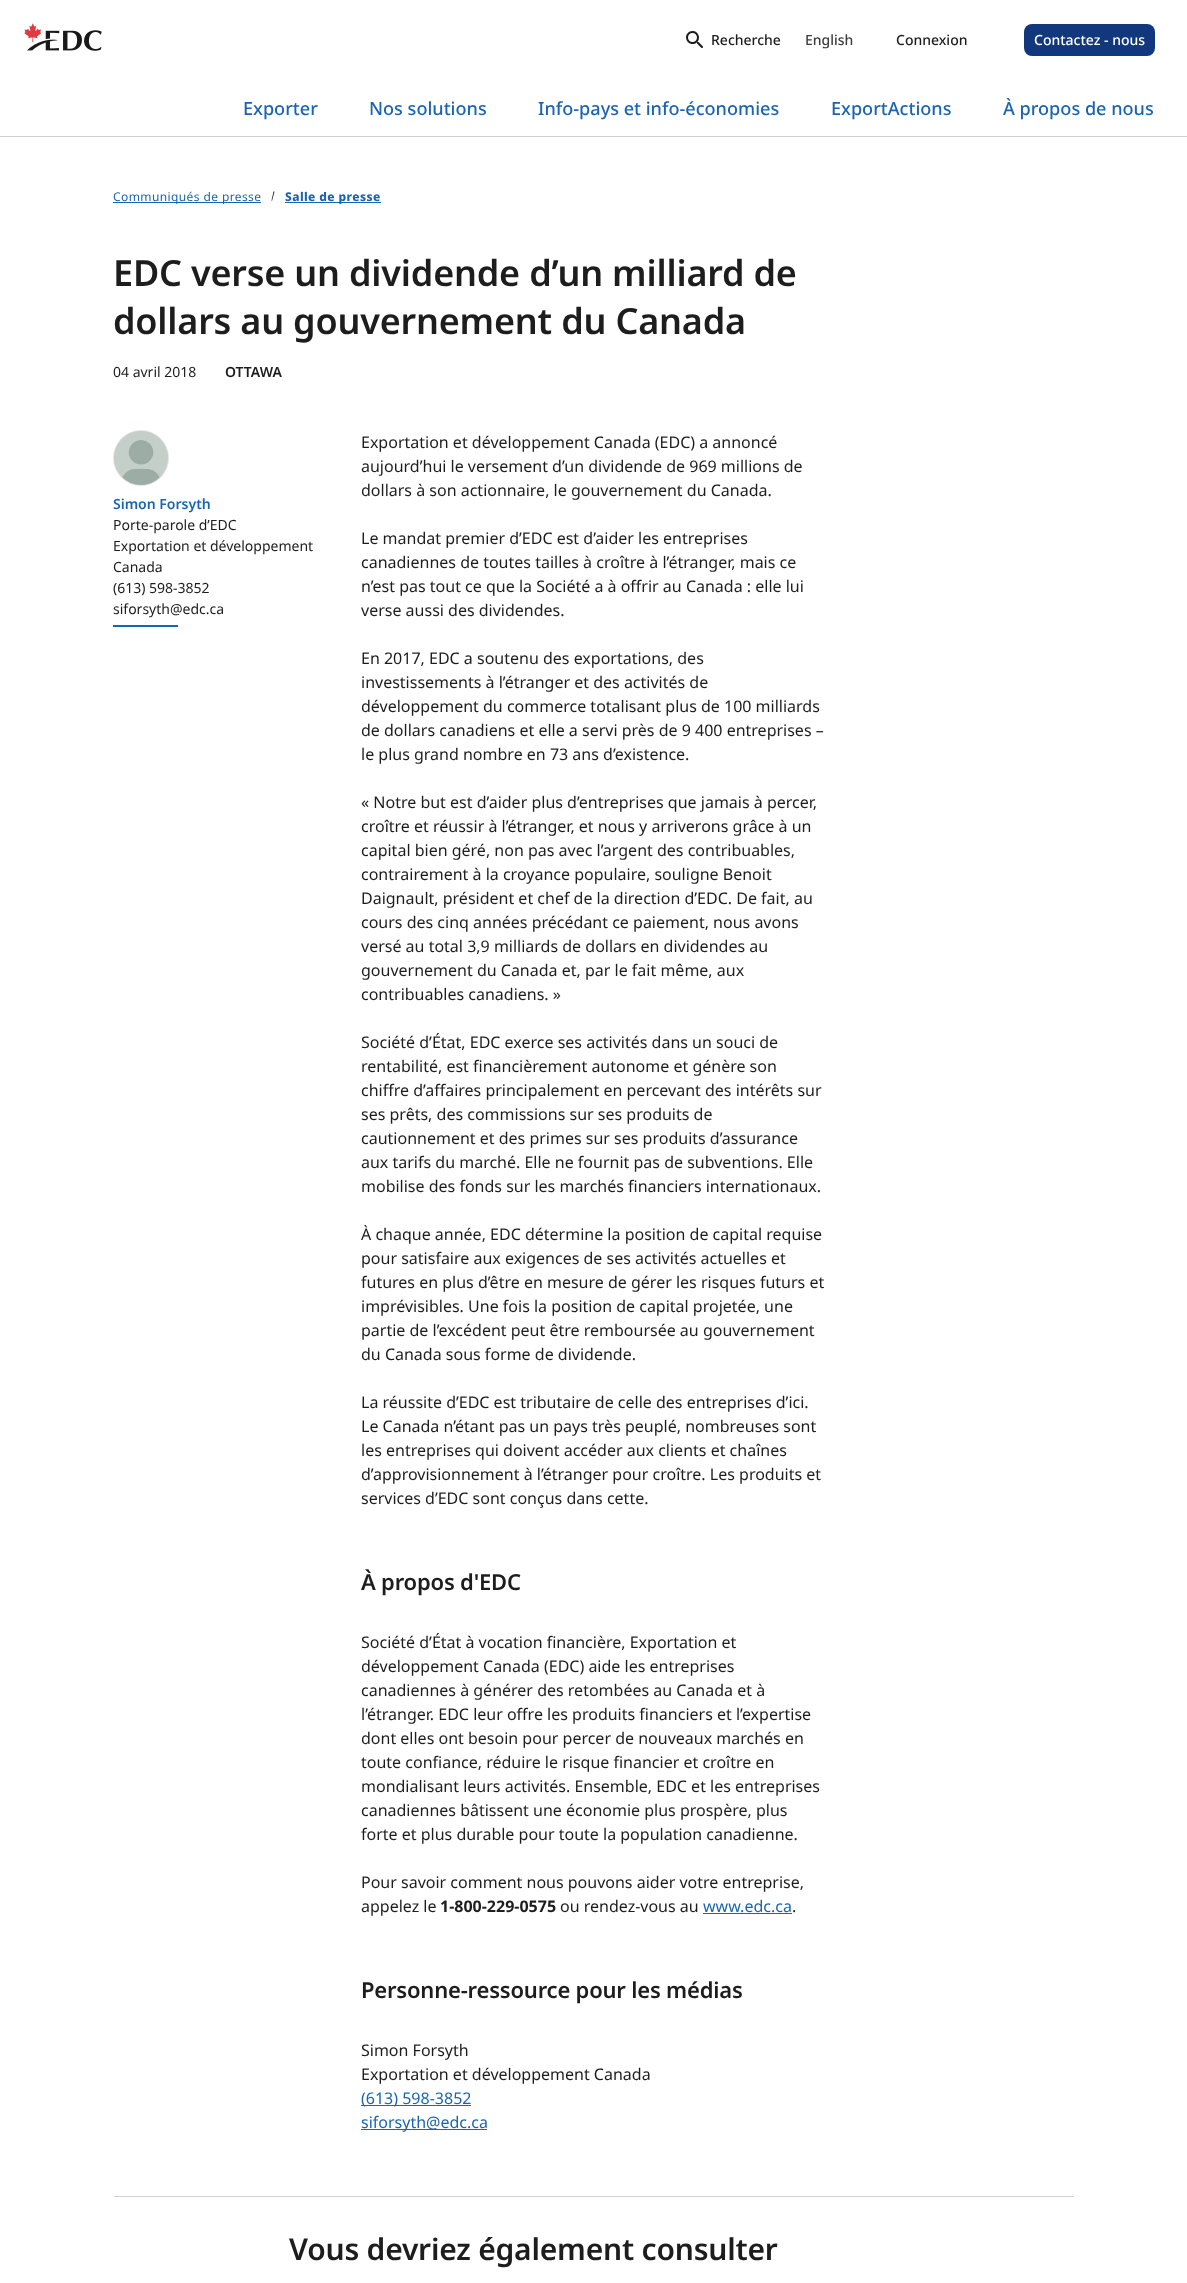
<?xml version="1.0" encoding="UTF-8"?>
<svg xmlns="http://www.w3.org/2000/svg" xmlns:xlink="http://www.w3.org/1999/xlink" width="1187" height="2283">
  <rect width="100%" height="100%" fill="#ffffff" />
  <image x="24" y="23" width="78" height="28" xlink:href="image1.png" />
  <image x="686" y="31" width="17" height="17" xlink:href="image2.png" />
  <rect x="1024" y="24" width="131" height="32" rx="8" fill="#11377c" />
  <rect y="136" width="1187" height="1" fill="#d1d1d1" />
  <rect x="113" y="202" width="148" height="1" fill="#1a65b2" />
  <path d="M 273.5 191.5 h 1 l -2.5 9.5 l -0.5 -0.5 z" fill="#1d1d1d" />
  <rect x="285" y="202" width="96" height="1" fill="#1a65b2" />
  <circle cx="141" cy="458" r="27.5" fill="#d1d1d1" stroke="#e6e6e6" />
  <image x="114" y="431" width="54" height="54" xlink:href="image3.png" />
  <rect x="113" y="625" width="65" height="2" fill="#1a65b2" />
  <rect x="703" y="1913" width="89" height="1" fill="#1a65b2" />
  <rect x="361" y="2105" width="110" height="1" fill="#1a65b2" />
  <rect x="361" y="2129" width="126" height="1" fill="#1a65b2" />
  <rect x="114" y="2196" width="960" height="1" fill="#d1d1d1" />
  <text x="711" y="45" style="font-family: Noto Sans; font-size: 14px; font-weight: 500; fill: #1d1d1d">Recherche</text>
  <text x="805" y="45" style="font-family: Noto Sans; font-size: 14px; font-weight: 500; fill: #3d3d3d">English</text>
  <text x="896" y="45" style="font-family: Noto Sans; font-size: 14px; font-weight: 500; fill: #1d1d1d">Connexion</text>
  <text x="1034" y="45" style="font-family: Noto Sans; font-size: 14px; font-weight: 500; fill: #ffffff">Contactez - nous</text>
  <text x="243" y="115" style="font-family: Noto Sans; font-size: 18.1px; font-weight: 500; fill: #1a65b2">Exporter</text>
  <text x="369" y="115" style="font-family: Noto Sans; font-size: 18.1px; font-weight: 500; fill: #1a65b2">Nos solutions</text>
  <text x="538" y="115" style="font-family: Noto Sans; font-size: 18.1px; font-weight: 500; fill: #1a65b2">Info-pays et info-économies</text>
  <text x="831" y="115" style="font-family: Noto Sans; font-size: 18.1px; font-weight: 500; fill: #1a65b2">ExportActions</text>
  <text x="1003" y="115" style="font-family: Noto Sans; font-size: 18.1px; font-weight: 500; fill: #1a65b2">À propos de nous</text>
  <text x="113" y="201" style="font-family: Noto Sans; font-size: 12px; letter-spacing: 0.4px; fill: #1a65b2">Communiqués de presse</text>
  <text x="285" y="201" style="font-family: Noto Sans; font-size: 12px; font-weight: 800; letter-spacing: 0.4px; fill: #1a65b2">Salle de presse</text>
  <text x="113" y="286" style="font-family: Noto Sans; font-size: 36px; font-weight: 600; letter-spacing: -0.2px; fill: #1d1d1d">EDC verse un dividende d’un milliard de</text>
  <text x="113" y="334" style="font-family: Noto Sans; font-size: 36px; font-weight: 600; letter-spacing: -0.2px; fill: #1d1d1d">dollars au gouvernement du Canada</text>
  <text x="113" y="377" style="font-family: Noto Sans; font-size: 14px; fill: #1d1d1d">04 avril 2018</text>
  <text x="225" y="377" style="font-family: Noto Sans; font-size: 14px; font-weight: 600; fill: #1d1d1d">OTTAWA</text>
  <text x="113" y="509" style="font-family: Noto Sans; font-size: 14px; font-weight: 600; fill: #1a65b2">Simon Forsyth</text>
  <text x="113" y="530" style="font-family: Noto Sans; font-size: 14px; fill: #1d1d1d">Porte-parole d’EDC</text>
  <text x="113" y="551" style="font-family: Noto Sans; font-size: 14px; fill: #1d1d1d">Exportation et développement</text>
  <text x="113" y="572" style="font-family: Noto Sans; font-size: 14px; fill: #1d1d1d">Canada</text>
  <text x="113" y="593" style="font-family: Noto Sans; font-size: 14px; fill: #1d1d1d">(613) 598-3852</text>
  <text x="113" y="614" style="font-family: Noto Sans; font-size: 14px; fill: #1d1d1d">siforsyth@edc.ca</text>
  <text x="361" y="448" style="font-family: Noto Sans; font-size: 16px; fill: #1d1d1d">Exportation et développement Canada (EDC) a annoncé</text>
  <text x="361" y="472" style="font-family: Noto Sans; font-size: 16px; fill: #1d1d1d">aujourd’hui le versement d’un dividende de 969 millions de</text>
  <text x="361" y="496" style="font-family: Noto Sans; font-size: 16px; fill: #1d1d1d">dollars à son actionnaire, le gouvernement du Canada.</text>
  <text x="361" y="544" style="font-family: Noto Sans; font-size: 16px; fill: #1d1d1d">Le mandat premier d’EDC est d’aider les entreprises</text>
  <text x="361" y="568" style="font-family: Noto Sans; font-size: 16px; fill: #1d1d1d">canadiennes de toutes tailles à croître à l’étranger, mais ce</text>
  <text x="361" y="592" style="font-family: Noto Sans; font-size: 16px; fill: #1d1d1d">n’est pas tout ce que la Société a à offrir au Canada : elle lui</text>
  <text x="361" y="616" style="font-family: Noto Sans; font-size: 16px; fill: #1d1d1d">verse aussi des dividendes.</text>
  <text x="361" y="664" style="font-family: Noto Sans; font-size: 16px; fill: #1d1d1d">En 2017, EDC a soutenu des exportations, des</text>
  <text x="361" y="688" style="font-family: Noto Sans; font-size: 16px; fill: #1d1d1d">investissements à l’étranger et des activités de</text>
  <text x="361" y="712" style="font-family: Noto Sans; font-size: 16px; fill: #1d1d1d">développement du commerce totalisant plus de 100 milliards</text>
  <text x="361" y="736" style="font-family: Noto Sans; font-size: 16px; fill: #1d1d1d">de dollars canadiens et elle a servi près de 9 400 entreprises –</text>
  <text x="361" y="760" style="font-family: Noto Sans; font-size: 16px; fill: #1d1d1d">le plus grand nombre en 73 ans d’existence.</text>
  <text x="361" y="808" style="font-family: Noto Sans; font-size: 16px; fill: #1d1d1d">« Notre but est d’aider plus d’entreprises que jamais à percer,</text>
  <text x="361" y="832" style="font-family: Noto Sans; font-size: 16px; fill: #1d1d1d">croître et réussir à l’étranger, et nous y arriverons grâce à un</text>
  <text x="361" y="856" style="font-family: Noto Sans; font-size: 16px; fill: #1d1d1d">capital bien géré, non pas avec l’argent des contribuables,</text>
  <text x="361" y="880" style="font-family: Noto Sans; font-size: 16px; fill: #1d1d1d">contrairement à la croyance populaire, souligne Benoit</text>
  <text x="361" y="904" style="font-family: Noto Sans; font-size: 16px; fill: #1d1d1d">Daignault, président et chef de la direction d’EDC. De fait, au</text>
  <text x="361" y="928" style="font-family: Noto Sans; font-size: 16px; fill: #1d1d1d">cours des cinq années précédant ce paiement, nous avons</text>
  <text x="361" y="952" style="font-family: Noto Sans; font-size: 16px; fill: #1d1d1d">versé au total 3,9 milliards de dollars en dividendes au</text>
  <text x="361" y="976" style="font-family: Noto Sans; font-size: 16px; fill: #1d1d1d">gouvernement du Canada et, par le fait même, aux</text>
  <text x="361" y="1000" style="font-family: Noto Sans; font-size: 16px; fill: #1d1d1d">contribuables canadiens. »</text>
  <text x="361" y="1048" style="font-family: Noto Sans; font-size: 16px; fill: #1d1d1d">Société d’État, EDC exerce ses activités dans un souci de</text>
  <text x="361" y="1072" style="font-family: Noto Sans; font-size: 16px; fill: #1d1d1d">rentabilité, est financièrement autonome et génère son</text>
  <text x="361" y="1096" style="font-family: Noto Sans; font-size: 16px; fill: #1d1d1d">chiffre d’affaires principalement en percevant des intérêts sur</text>
  <text x="361" y="1120" style="font-family: Noto Sans; font-size: 16px; fill: #1d1d1d">ses prêts, des commissions sur ses produits de</text>
  <text x="361" y="1144" style="font-family: Noto Sans; font-size: 16px; fill: #1d1d1d">cautionnement et des primes sur ses produits d’assurance</text>
  <text x="361" y="1168" style="font-family: Noto Sans; font-size: 16px; fill: #1d1d1d">aux tarifs du marché. Elle ne fournit pas de subventions. Elle</text>
  <text x="361" y="1192" style="font-family: Noto Sans; font-size: 16px; fill: #1d1d1d">mobilise des fonds sur les marchés financiers internationaux.</text>
  <text x="361" y="1240" style="font-family: Noto Sans; font-size: 16px; fill: #1d1d1d">À chaque année, EDC détermine la position de capital requise</text>
  <text x="361" y="1264" style="font-family: Noto Sans; font-size: 16px; fill: #1d1d1d">pour satisfaire aux exigences de ses activités actuelles et</text>
  <text x="361" y="1288" style="font-family: Noto Sans; font-size: 16px; fill: #1d1d1d">futures en plus d’être en mesure de gérer les risques futurs et</text>
  <text x="361" y="1312" style="font-family: Noto Sans; font-size: 16px; fill: #1d1d1d">imprévisibles. Une fois la position de capital projetée, une</text>
  <text x="361" y="1336" style="font-family: Noto Sans; font-size: 16px; fill: #1d1d1d">partie de l’excédent peut être remboursée au gouvernement</text>
  <text x="361" y="1360" style="font-family: Noto Sans; font-size: 16px; fill: #1d1d1d">du Canada sous forme de dividende.</text>
  <text x="361" y="1408" style="font-family: Noto Sans; font-size: 16px; fill: #1d1d1d">La réussite d’EDC est tributaire de celle des entreprises d’ici.</text>
  <text x="361" y="1432" style="font-family: Noto Sans; font-size: 16px; fill: #1d1d1d">Le Canada n’étant pas un pays très peuplé, nombreuses sont</text>
  <text x="361" y="1456" style="font-family: Noto Sans; font-size: 16px; fill: #1d1d1d">les entreprises qui doivent accéder aux clients et chaînes</text>
  <text x="361" y="1480" style="font-family: Noto Sans; font-size: 16px; fill: #1d1d1d">d’approvisionnement à l’étranger pour croître. Les produits et</text>
  <text x="361" y="1504" style="font-family: Noto Sans; font-size: 16px; fill: #1d1d1d">services d’EDC sont conçus dans cette.</text>
  <text x="361" y="1590" style="font-family: Noto Sans; font-size: 22px; font-weight: 600; letter-spacing: -0.2px; fill: #1d1d1d">À propos d'EDC</text>
  <text x="361" y="1648" style="font-family: Noto Sans; font-size: 16px; fill: #1d1d1d">Société d’État à vocation financière, Exportation et</text>
  <text x="361" y="1672" style="font-family: Noto Sans; font-size: 16px; fill: #1d1d1d">développement Canada (EDC) aide les entreprises</text>
  <text x="361" y="1696" style="font-family: Noto Sans; font-size: 16px; fill: #1d1d1d">canadiennes à générer des retombées au Canada et à</text>
  <text x="361" y="1720" style="font-family: Noto Sans; font-size: 16px; fill: #1d1d1d">l’étranger. EDC leur offre les produits financiers et l’expertise</text>
  <text x="361" y="1744" style="font-family: Noto Sans; font-size: 16px; fill: #1d1d1d">dont elles ont besoin pour percer de nouveaux marchés en</text>
  <text x="361" y="1768" style="font-family: Noto Sans; font-size: 16px; fill: #1d1d1d">toute confiance, réduire le risque financier et croître en</text>
  <text x="361" y="1792" style="font-family: Noto Sans; font-size: 16px; fill: #1d1d1d">mondialisant leurs activités. Ensemble, EDC et les entreprises</text>
  <text x="361" y="1816" style="font-family: Noto Sans; font-size: 16px; fill: #1d1d1d">canadiennes bâtissent une économie plus prospère, plus</text>
  <text x="361" y="1840" style="font-family: Noto Sans; font-size: 16px; fill: #1d1d1d">forte et plus durable pour toute la population canadienne.</text>
  <text x="361" y="1888" style="font-family: Noto Sans; font-size: 16px; fill: #1d1d1d">Pour savoir comment nous pouvons aider votre entreprise,</text>
  <text x="361" y="1912" style="font-family: Noto Sans; font-size: 16px; fill: #1d1d1d">appelez le</text>
  <text x="440" y="1912" style="font-family: Noto Sans; font-size: 16px; font-weight: bold; fill: #1d1d1d">1-800-229-0575</text>
  <text x="560" y="1912" style="font-family: Noto Sans; font-size: 16px; fill: #1d1d1d">ou rendez-vous au</text>
  <text x="703" y="1912" style="font-family: Noto Sans; font-size: 16px; fill: #1a65b2">www.edc.ca</text>
  <text x="792" y="1912" style="font-family: Noto Sans; font-size: 16px; fill: #1d1d1d">.</text>
  <text x="361" y="1998" style="font-family: Noto Sans; font-size: 22px; font-weight: 600; letter-spacing: -0.2px; fill: #1d1d1d">Personne-ressource pour les médias</text>
  <text x="361" y="2056" style="font-family: Noto Sans; font-size: 16px; fill: #1d1d1d">Simon Forsyth</text>
  <text x="361" y="2080" style="font-family: Noto Sans; font-size: 16px; fill: #1d1d1d">Exportation et développement Canada</text>
  <text x="361" y="2104" style="font-family: Noto Sans; font-size: 16px; fill: #1a65b2">(613) 598-3852</text>
  <text x="361" y="2128" style="font-family: Noto Sans; font-size: 16px; fill: #1a65b2">siforsyth@edc.ca</text>
  <text x="289" y="2260" style="font-family: Noto Sans; font-size: 30px; font-weight: 600; letter-spacing: -0.2px; fill: #1d1d1d">Vous devriez également consulter</text>
</svg>
